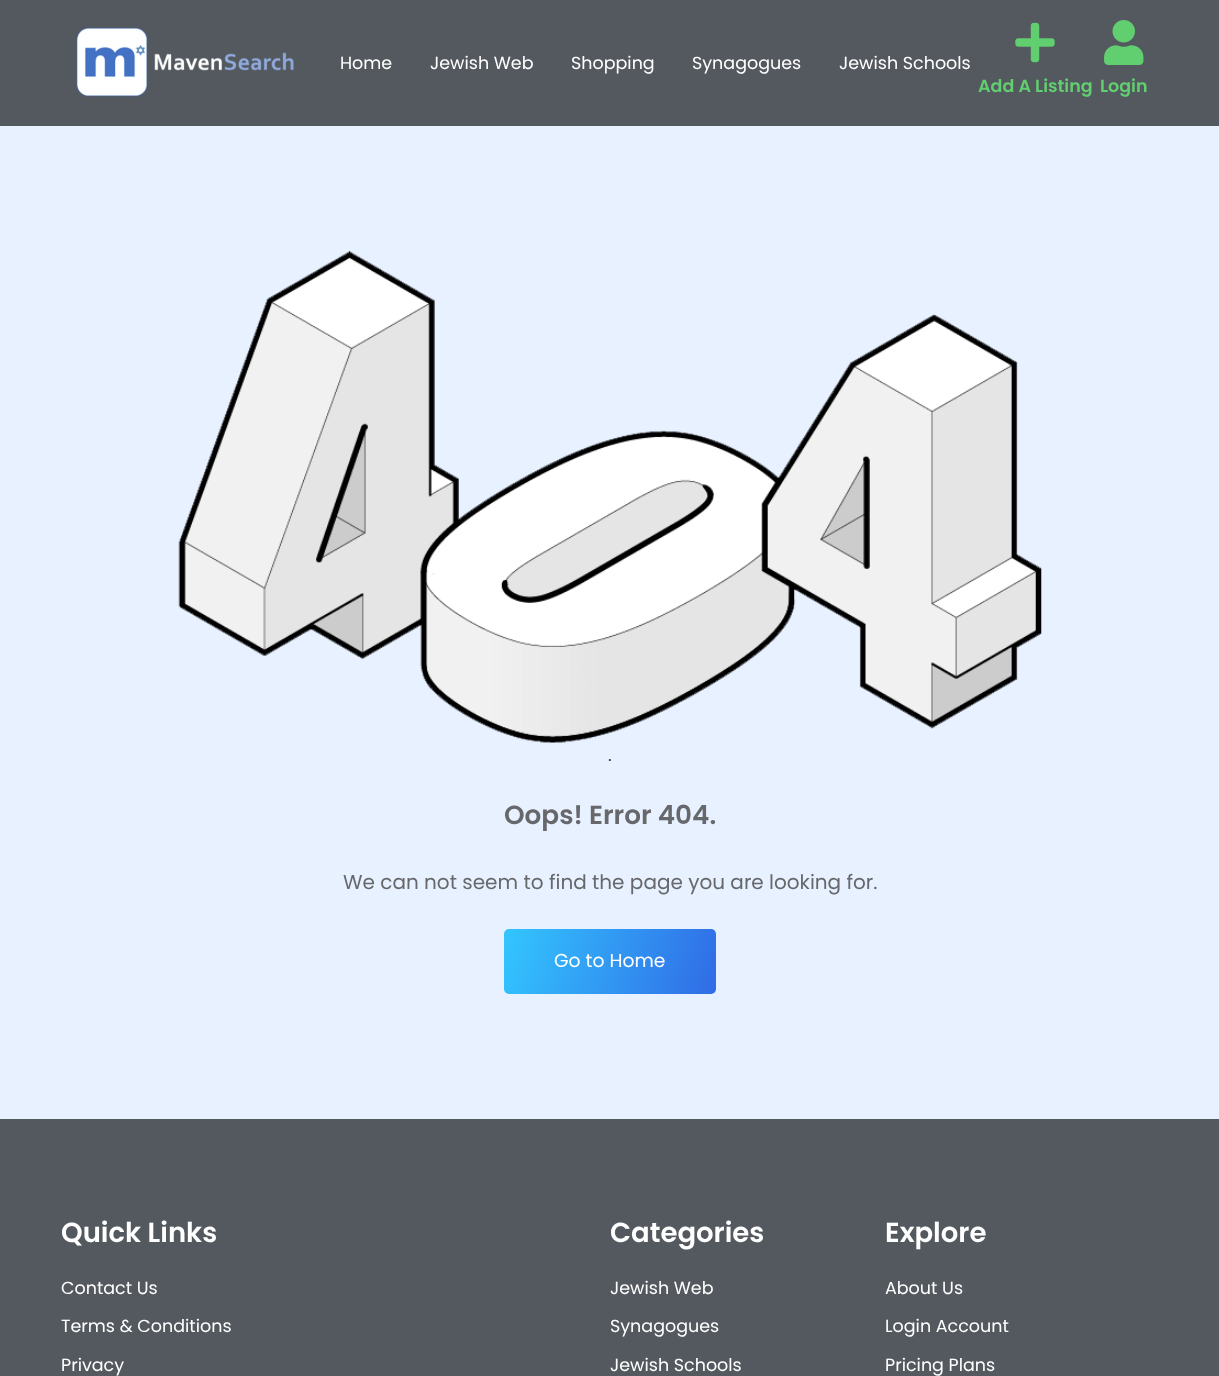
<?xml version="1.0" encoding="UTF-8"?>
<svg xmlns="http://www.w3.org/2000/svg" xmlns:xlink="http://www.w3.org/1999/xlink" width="1219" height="1376">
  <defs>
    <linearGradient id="g1" gradientUnits="userSpaceOnUse" x1="503" y1="931" x2="717" y2="992"><stop offset="0" stop-color="#33c6ff" /><stop offset="1" stop-color="#306be6" /></linearGradient>
  </defs>
  <rect width="100%" height="100%" fill="#e8f1ff" />
  <rect width="1219" height="126" fill="#54595f" />
  <image x="76" y="27" width="218" height="70" xlink:href="image1.png" />
  <image x="1015" y="22" width="40" height="41" xlink:href="image2.png" />
  <image x="1104" y="20" width="40" height="45" xlink:href="image3.png" />
  <image x="178" y="251" width="864" height="492" xlink:href="image4.png" />
  <rect x="504" y="929" width="212" height="65" rx="5" fill="url(#g1)" />
  <rect y="1119" width="1219" height="257" fill="#54595f" />
  <text x="340" y="69" style="font-family: Poppins; font-size: 17.5px; fill: #ffffff">Home</text>
  <text x="430" y="69" style="font-family: Poppins; font-size: 17.5px; fill: #ffffff">Jewish Web</text>
  <text x="571" y="69" style="font-family: Poppins; font-size: 17.5px; fill: #ffffff">Shopping</text>
  <text x="692" y="69" style="font-family: Poppins; font-size: 17.5px; fill: #ffffff">Synagogues</text>
  <text x="839" y="69" style="font-family: Poppins; font-size: 17.5px; fill: #ffffff">Jewish Schools</text>
  <text x="978" y="92" style="font-family: Poppins; font-size: 17.5px; font-weight: 600; fill: #61ce70">Add A Listing</text>
  <text x="1100" y="92" style="font-family: Poppins; font-size: 17.5px; font-weight: 600; fill: #61ce70">Login</text>
  <text x="608" y="761" style="font-family: Poppins; font-size: 17.5px; fill: #333333">.</text>
  <text x="504" y="824" style="font-family: Poppins; font-size: 26.25px; font-weight: 600; fill: #66686b">Oops! Error 404.</text>
  <text x="343" y="889" style="font-family: Poppins; font-size: 20px; fill: #66686b">We can not seem to find the page you are looking for.</text>
  <text x="554" y="967" style="font-family: Poppins; font-size: 18.75px; fill: #ffffff">Go to Home</text>
  <text x="61" y="1242" style="font-family: Poppins; font-size: 27.5px; font-weight: 600; fill: #ffffff">Quick Links</text>
  <text x="61" y="1294" style="font-family: Poppins; font-size: 17.5px; fill: #ffffff">Contact Us</text>
  <text x="61" y="1332" style="font-family: Poppins; font-size: 17.5px; fill: #ffffff">Terms &amp; Conditions</text>
  <text x="61" y="1371" style="font-family: Poppins; font-size: 17.5px; fill: #ffffff">Privacy</text>
  <text x="610" y="1242" style="font-family: Poppins; font-size: 27.5px; font-weight: 600; fill: #ffffff">Categories</text>
  <text x="610" y="1294" style="font-family: Poppins; font-size: 17.5px; fill: #ffffff">Jewish Web</text>
  <text x="610" y="1332" style="font-family: Poppins; font-size: 17.5px; fill: #ffffff">Synagogues</text>
  <text x="610" y="1371" style="font-family: Poppins; font-size: 17.5px; fill: #ffffff">Jewish Schools</text>
  <text x="885" y="1242" style="font-family: Poppins; font-size: 27.5px; font-weight: 600; fill: #ffffff">Explore</text>
  <text x="885" y="1294" style="font-family: Poppins; font-size: 17.5px; fill: #ffffff">About Us</text>
  <text x="885" y="1332" style="font-family: Poppins; font-size: 17.5px; fill: #ffffff">Login Account</text>
  <text x="885" y="1371" style="font-family: Poppins; font-size: 17.5px; fill: #ffffff">Pricing Plans</text>
</svg>
